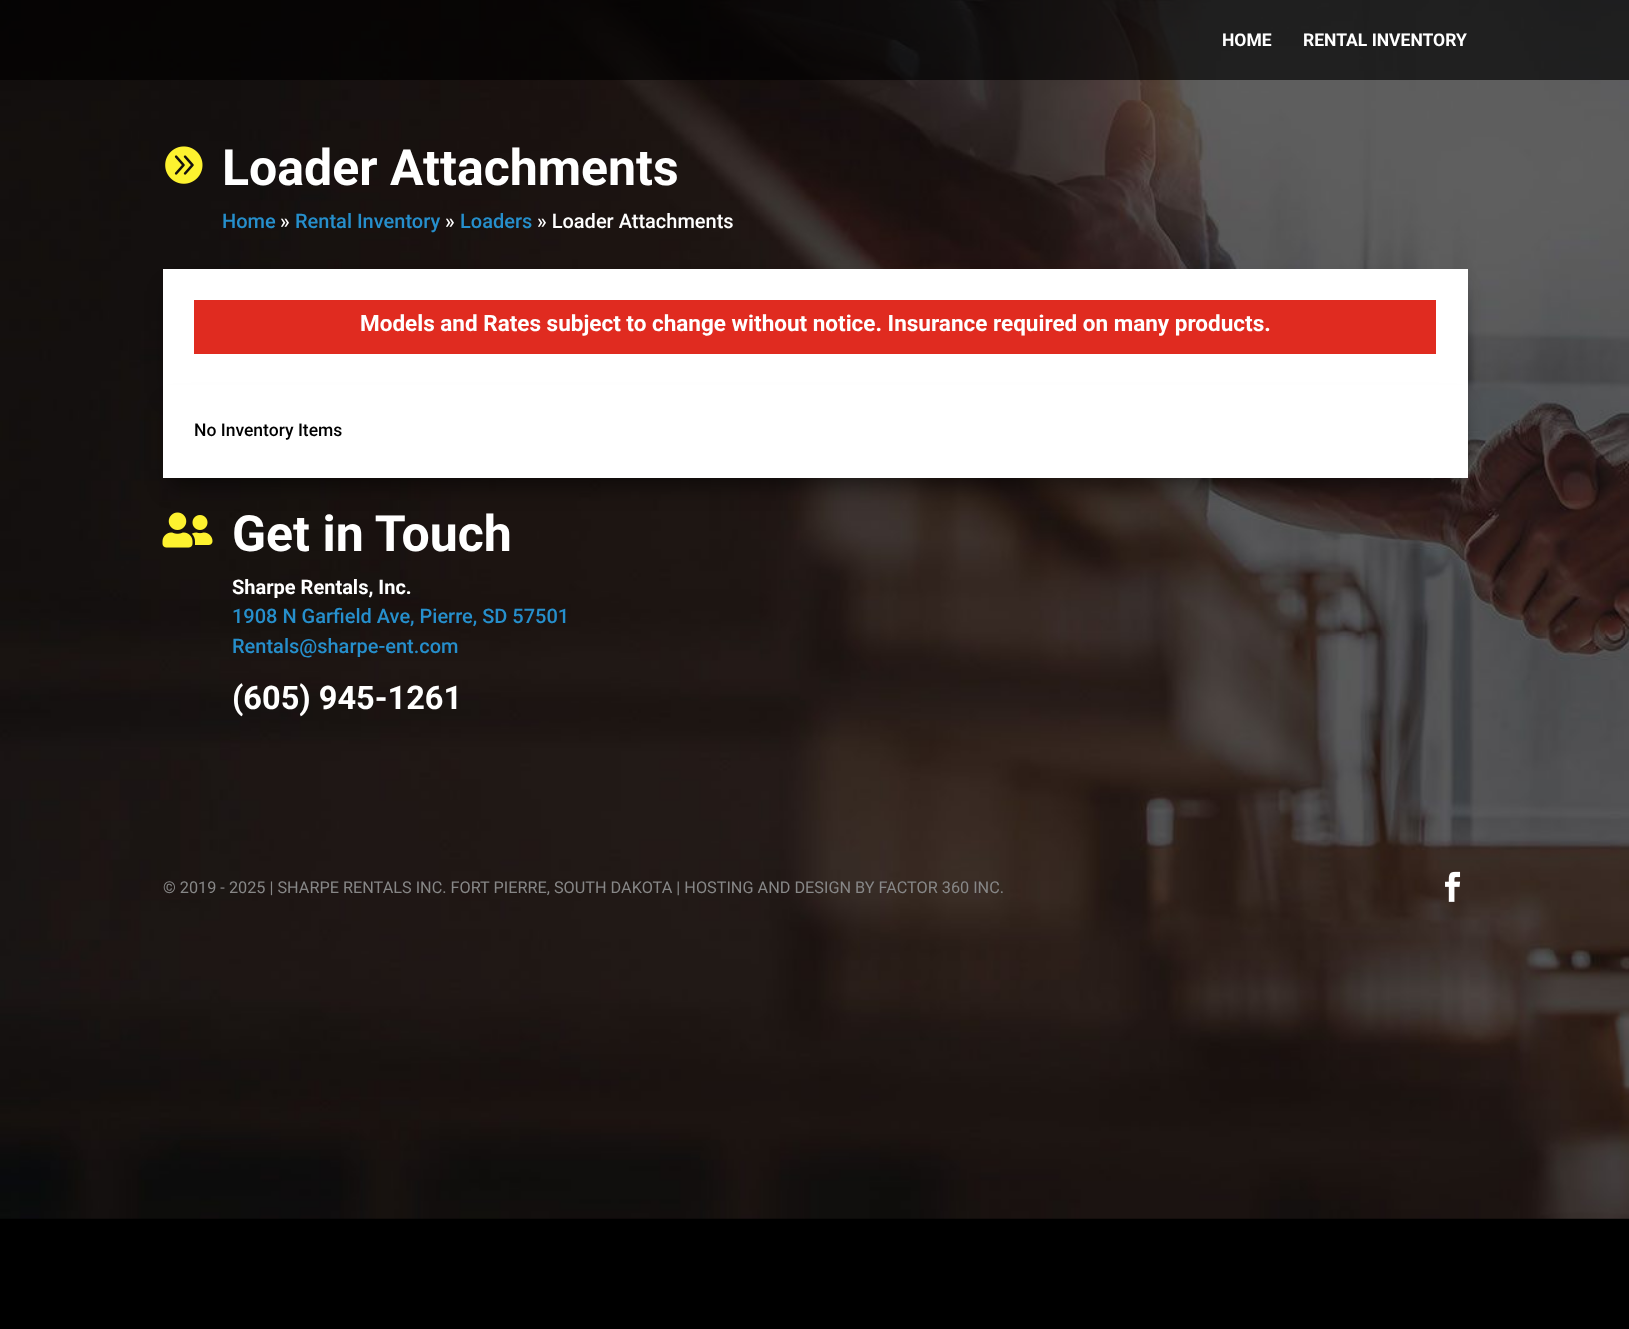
<?xml version="1.0" encoding="UTF-8"?>
<svg xmlns="http://www.w3.org/2000/svg" xmlns:xlink="http://www.w3.org/1999/xlink" width="1629" height="1329">
  <rect width="100%" height="100%" fill="#000000" />
  <image x="0" y="0" width="1629" height="1219" xlink:href="image1.png" />
  <rect width="1629" height="80" fill="#000000" fill-opacity="0.66" />
  <image x="165" y="146" width="38" height="38" xlink:href="image2.png" />
  <rect x="170" y="291" width="1290" height="102" fill="#000000" fill-opacity="0.53" filter="blur(11px)" />
  <rect x="163" y="269" width="1305" height="116" fill="#ffffff" />
  <rect x="194" y="300" width="1242" height="54" fill="#e02b20" />
  <rect x="170" y="408" width="1290" height="77" fill="#000000" fill-opacity="0.53" filter="blur(11px)" />
  <rect x="163" y="385" width="1305" height="93" fill="#ffffff" />
  <image x="162" y="512" width="51" height="36" xlink:href="image3.png" />
  <image x="1445" y="871" width="16" height="31" xlink:href="image4.png" />
  <text x="1222" y="46" style="font-family: Roboto; font-size: 17.5px; font-weight: bold; fill: #ffffff">HOME</text>
  <text x="1303" y="46" style="font-family: Roboto; font-size: 17.5px; font-weight: bold; fill: #ffffff">RENTAL INVENTORY</text>
  <text x="222" y="185" style="font-family: Roboto; font-size: 50px; font-weight: bold; fill: #ffffff">Loader Attachments</text>
  <text x="222" y="228" style="font-family: Roboto; font-size: 20px; font-weight: 500; fill: #268fcc">Home</text>
  <text x="280" y="228" style="font-family: Roboto; font-size: 20px; font-weight: 500; fill: #ffffff">»</text>
  <text x="295" y="228" style="font-family: Roboto; font-size: 20px; font-weight: 500; fill: #268fcc">Rental Inventory</text>
  <text x="445" y="228" style="font-family: Roboto; font-size: 20px; font-weight: 500; fill: #ffffff">»</text>
  <text x="460" y="228" style="font-family: Roboto; font-size: 20px; font-weight: 500; fill: #268fcc">Loaders</text>
  <text x="537" y="228" style="font-family: Roboto; font-size: 20px; font-weight: 500; fill: #ffffff">» Loader Attachments</text>
  <text x="360" y="331" style="font-family: Roboto; font-size: 22.5px; font-weight: bold; fill: #ffffff">Models and Rates subject to change without notice. Insurance required on many products.</text>
  <text x="194" y="436" style="font-family: Roboto; font-size: 17.5px; font-weight: 500; fill: #000000">No Inventory Items</text>
  <text x="232" y="551" style="font-family: Roboto; font-size: 50px; font-weight: bold; fill: #ffffff">Get in Touch</text>
  <text x="232" y="594" style="font-family: Roboto; font-size: 20px; font-weight: bold; fill: #ffffff">Sharpe Rentals, Inc.</text>
  <text x="232" y="623" style="font-family: Roboto; font-size: 20px; font-weight: 500; fill: #268fcc">1908 N Garfield Ave, Pierre, SD 57501</text>
  <text x="232" y="653" style="font-family: Roboto; font-size: 20px; font-weight: 500; fill: #268fcc">Rentals@sharpe-ent.com</text>
  <text x="232" y="709" style="font-family: Roboto; font-size: 32.5px; font-weight: bold; fill: #ffffff">(605) 945-1261</text>
  <text x="163" y="893" style="font-family: Roboto; font-size: 16.25px; fill: #878787">© 2019 - 2025 | SHARPE RENTALS INC. FORT PIERRE, SOUTH DAKOTA | HOSTING AND DESIGN BY FACTOR 360 INC.</text>
</svg>
